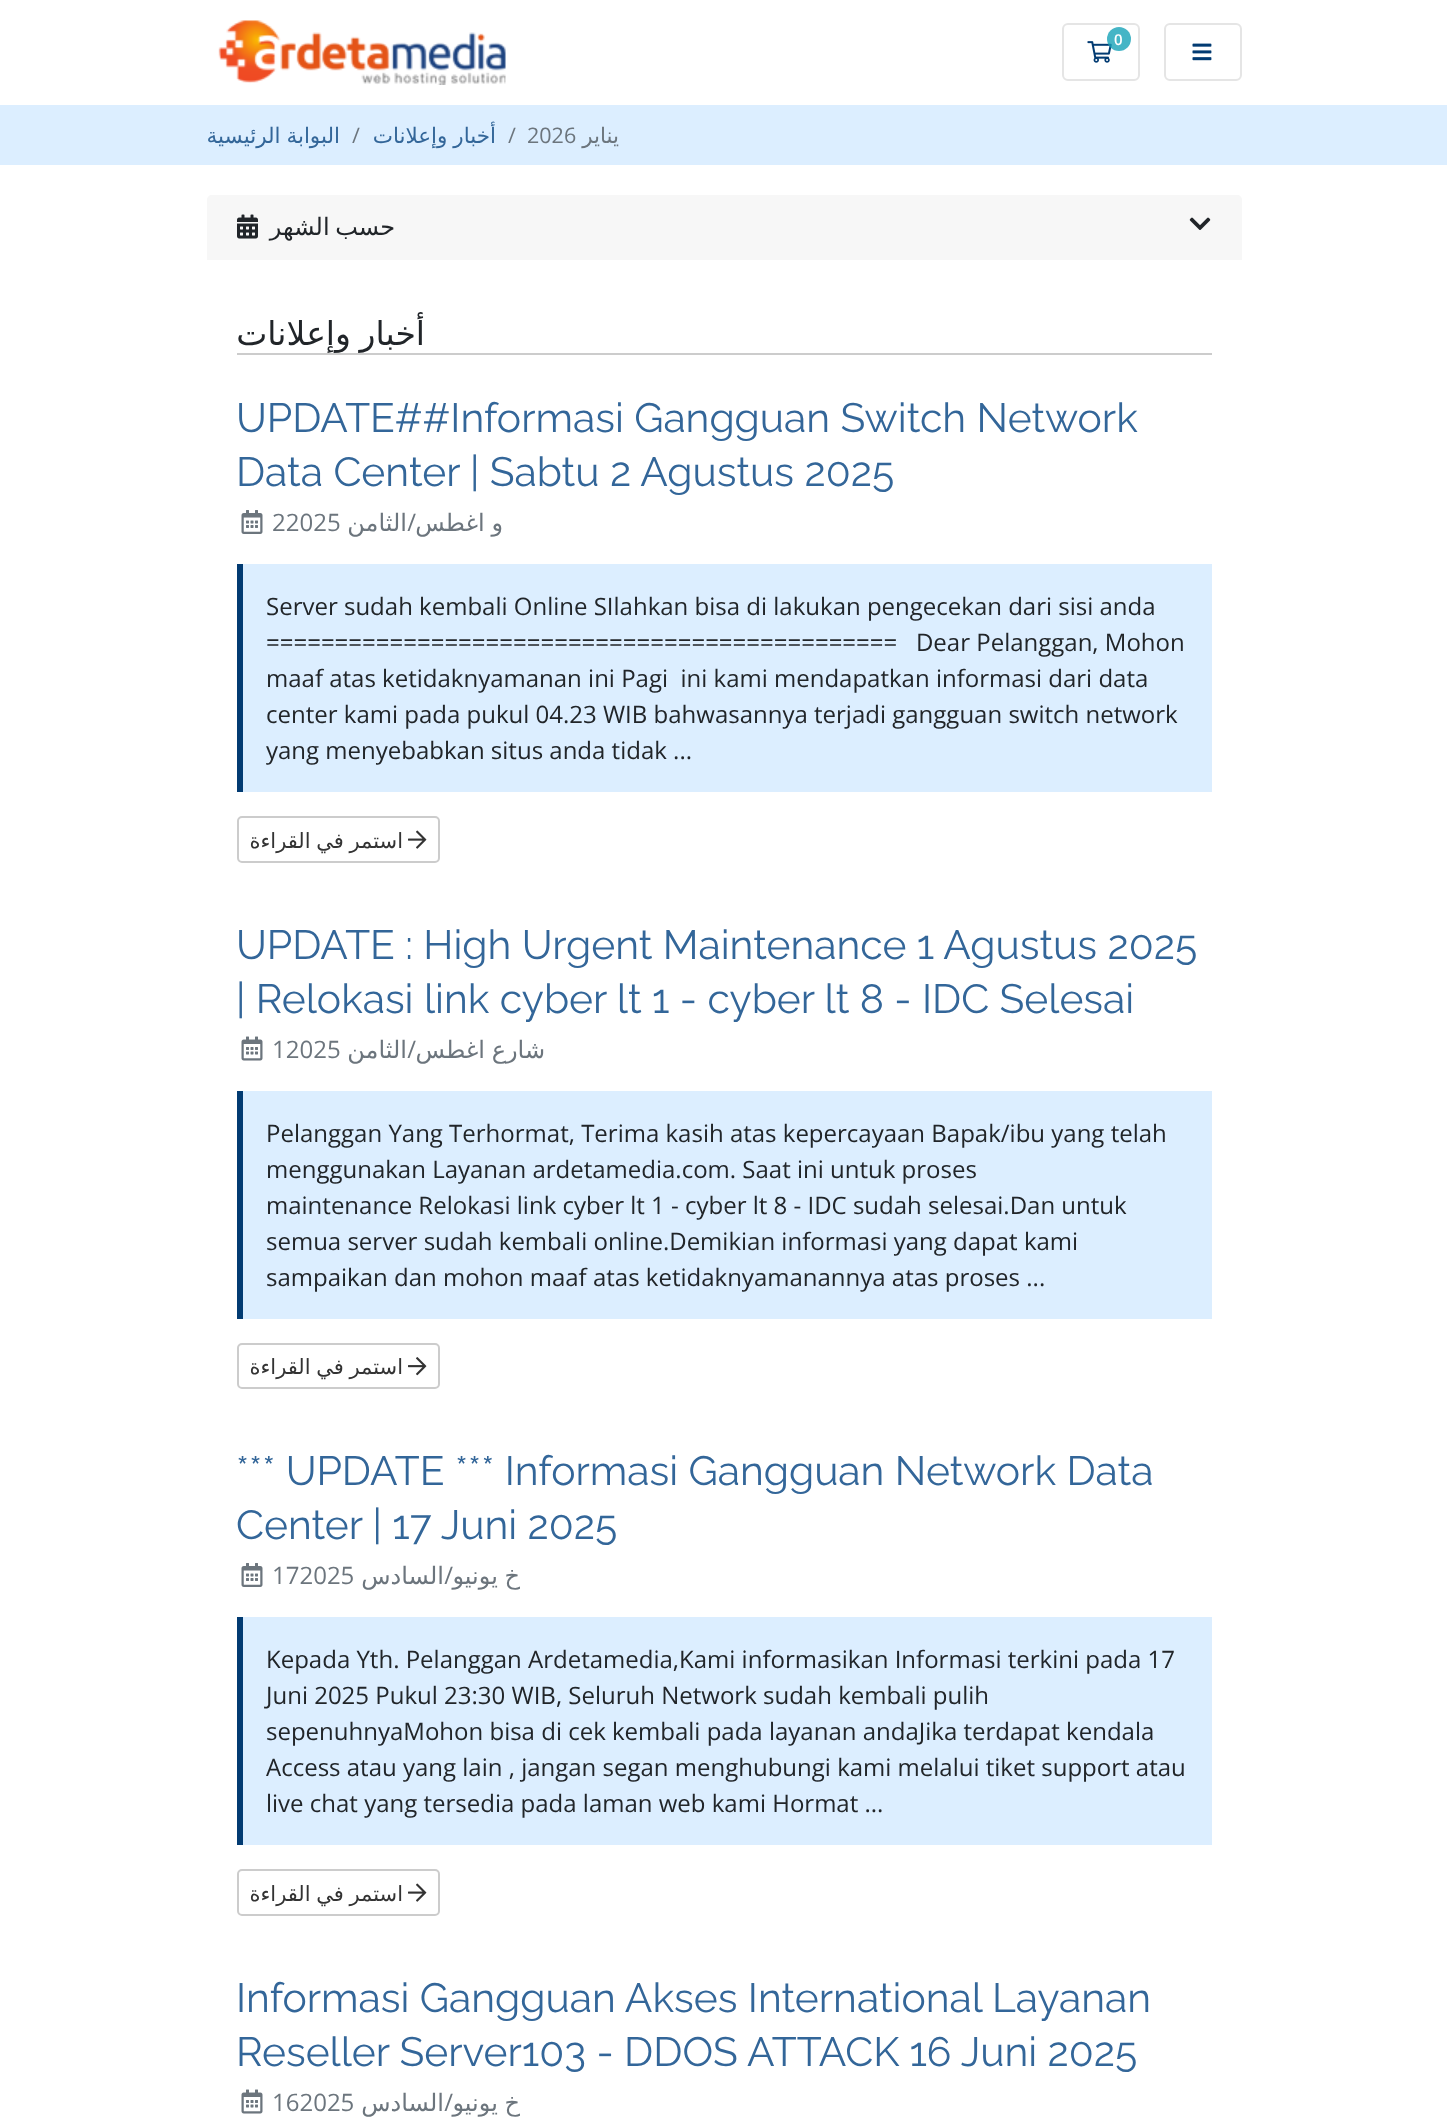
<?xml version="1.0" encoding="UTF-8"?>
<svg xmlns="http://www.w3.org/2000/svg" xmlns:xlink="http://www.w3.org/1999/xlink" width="1447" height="2119">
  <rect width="100%" height="100%" fill="#ffffff" />
  <image x="218" y="20" width="288" height="65" xlink:href="image1.png" />
  <rect x="1063" y="24" width="76" height="56" rx="5" fill="none" stroke="#e5e5e5" stroke-width="2" />
  <image x="1087" y="41" width="25" height="22" xlink:href="image2.png" />
  <circle cx="1119" cy="39" r="12" fill="#17a2b8" fill-opacity="0.8" />
  <rect x="1165" y="24" width="76" height="56" rx="5" fill="none" stroke="#e5e5e5" stroke-width="2" />
  <image x="1192" y="43" width="20" height="18" xlink:href="image3.png" />
  <rect y="105" width="1447" height="60" fill="#dceeff" />
  <path d="M 212 195 h 1025 c 3 0 5 2 5 5 v 60 h -1035 v -60 c 0 -3 2 -5 5 -5 z" fill="#f7f7f7" />
  <image x="237" y="214" width="21" height="25" xlink:href="image4.png" />
  <image x="1189" y="217" width="22" height="13" xlink:href="image5.png" />
  <rect x="237" y="353" width="975" height="2" fill="#cccccc" />
  <image x="241" y="510" width="22" height="24" xlink:href="image6.png" />
  <rect x="243" y="564" width="969" height="228" fill="#dceeff" />
  <rect x="237" y="564" width="6" height="228" fill="#023b72" />
  <rect x="238" y="817" width="201" height="45" rx="4" fill="none" stroke="#cccccc" stroke-width="2" />
  <image x="408" y="830" width="19" height="19" xlink:href="image7.png" />
  <image x="241" y="1036" width="22" height="25" xlink:href="image8.png" />
  <rect x="243" y="1091" width="969" height="228" fill="#dceeff" />
  <rect x="237" y="1091" width="6" height="228" fill="#023b72" />
  <rect x="238" y="1344" width="201" height="44" rx="4" fill="none" stroke="#cccccc" stroke-width="2" />
  <image x="408" y="1357" width="19" height="19" xlink:href="image9.png" />
  <image x="241" y="1563" width="22" height="24" xlink:href="image6.png" />
  <rect x="243" y="1617" width="969" height="228" fill="#dceeff" />
  <rect x="237" y="1617" width="6" height="228" fill="#023b72" />
  <rect x="238" y="1870" width="201" height="45" rx="4" fill="none" stroke="#cccccc" stroke-width="2" />
  <image x="408" y="1883" width="19" height="19" xlink:href="image7.png" />
  <image x="241" y="2089" width="22" height="25" xlink:href="image8.png" />
  <text x="1114" y="45" style="font-family: Open Sans; font-size: 15px; font-weight: 600; fill: #ffffff">0</text>
  <text x="340" y="143" word-spacing="-1" style="font-family: DejaVu Sans; font-size: 21.5px; direction: rtl; fill: #336699">البوابة الرئيسية</text>
  <text x="352" y="143" style="font-family: Open Sans; font-size: 21.5px; fill: #6c757d">/</text>
  <text x="496" y="143" word-spacing="-1" style="font-family: DejaVu Sans; font-size: 21.5px; direction: rtl; fill: #336699">أخبار وإعلانات</text>
  <text x="508" y="143" style="font-family: Open Sans; font-size: 21.5px; fill: #6c757d">/</text>
  <text x="527" y="143" style="font-family: Open Sans; font-size: 21.5px; fill: #6c757d">2026</text>
  <text x="619" y="143" style="font-family: DejaVu Sans; font-size: 21.5px; direction: rtl; fill: #6c757d">يناير</text>
  <text x="395" y="235" word-spacing="-2" style="font-family: DejaVu Sans; font-size: 24px; direction: rtl; fill: #212529">حسب الشهر</text>
  <text x="425" y="345" word-spacing="-2" style="font-family: DejaVu Sans; font-size: 33px; direction: rtl; fill: #212529">أخبار وإعلانات</text>
  <text x="236" y="432" style="font-family: Raleway; font-size: 40.8px; fill: #336699">UPDATE##Informasi Gangguan Switch Network</text>
  <text x="236" y="486" style="font-family: Raleway; font-size: 40.8px; fill: #336699">Data Center | Sabtu 2 Agustus 2025</text>
  <text x="272" y="531" style="font-family: Open Sans; font-size: 24px; fill: #6c757d">22025</text>
  <text x="407" y="531" style="font-family: DejaVu Sans; font-size: 24px; direction: rtl; fill: #6c757d">الثامن</text>
  <text x="416" y="531" style="font-family: Open Sans; font-size: 24px; direction: rtl; fill: #6c757d">/</text>
  <text x="503" y="531" word-spacing="-1" style="font-family: DejaVu Sans; font-size: 24px; direction: rtl; fill: #6c757d">و اغطس</text>
  <text x="266" y="615" style="font-family: Open Sans; font-size: 24px; fill: #212529">Server sudah kembali Online SIlahkan bisa di lakukan pengecekan dari sisi anda</text>
  <text x="266" y="651" style="font-family: Open Sans; font-size: 24px; fill: #212529" xml:space="preserve">==============================================   Dear Pelanggan, Mohon</text>
  <text x="266" y="687" style="font-family: Open Sans; font-size: 24px; fill: #212529" xml:space="preserve">maaf atas ketidaknyamanan ini Pagi  ini kami mendapatkan informasi dari data</text>
  <text x="266" y="723" style="font-family: Open Sans; font-size: 24px; fill: #212529">center kami pada pukul 04.23 WIB bahwasannya terjadi gangguan switch network</text>
  <text x="266" y="759" style="font-family: Open Sans; font-size: 24px; fill: #212529">yang menyebabkan situs anda tidak ...</text>
  <text x="403" y="848" word-spacing="-1" style="font-family: DejaVu Sans; font-size: 21px; direction: rtl; fill: #333333">استمر في القراءة</text>
  <text x="236" y="959" style="font-family: Raleway; font-size: 40.8px; fill: #336699">UPDATE : High Urgent Maintenance 1 Agustus 2025</text>
  <text x="236" y="1013" style="font-family: Raleway; font-size: 40.8px; fill: #336699">| Relokasi link cyber lt 1 - cyber lt 8 - IDC Selesai</text>
  <text x="272" y="1058" style="font-family: Open Sans; font-size: 24px; fill: #6c757d">12025</text>
  <text x="407" y="1058" style="font-family: DejaVu Sans; font-size: 24px; direction: rtl; fill: #6c757d">الثامن</text>
  <text x="416" y="1058" style="font-family: Open Sans; font-size: 24px; direction: rtl; fill: #6c757d">/</text>
  <text x="545" y="1058" word-spacing="-1" style="font-family: DejaVu Sans; font-size: 24px; direction: rtl; fill: #6c757d">شارع اغطس</text>
  <text x="266" y="1142" style="font-family: Open Sans; font-size: 24px; fill: #212529">Pelanggan Yang Terhormat, Terima kasih atas kepercayaan Bapak/ibu yang telah</text>
  <text x="266" y="1178" style="font-family: Open Sans; font-size: 24px; fill: #212529">menggunakan Layanan ardetamedia.com. Saat ini untuk proses</text>
  <text x="266" y="1214" style="font-family: Open Sans; font-size: 24px; fill: #212529">maintenance Relokasi link cyber lt 1 - cyber lt 8 - IDC sudah selesai.Dan untuk</text>
  <text x="266" y="1250" style="font-family: Open Sans; font-size: 24px; fill: #212529">semua server sudah kembali online.Demikian informasi yang dapat kami</text>
  <text x="266" y="1286" style="font-family: Open Sans; font-size: 24px; fill: #212529">sampaikan dan mohon maaf atas ketidaknyamanannya atas proses ...</text>
  <text x="403" y="1374" word-spacing="-1" style="font-family: DejaVu Sans; font-size: 21px; direction: rtl; fill: #333333">استمر في القراءة</text>
  <text x="236" y="1485" style="font-family: Raleway; font-size: 40.8px; fill: #336699">*** UPDATE *** Informasi Gangguan Network Data</text>
  <text x="236" y="1539" style="font-family: Raleway; font-size: 40.8px; fill: #336699">Center | 17 Juni 2025</text>
  <text x="272" y="1584" style="font-family: Open Sans; font-size: 24px; fill: #6c757d">172025</text>
  <text x="444" y="1584" style="font-family: DejaVu Sans; font-size: 24px; direction: rtl; fill: #6c757d">السادس</text>
  <text x="453" y="1584" style="font-family: Open Sans; font-size: 24px; direction: rtl; fill: #6c757d">/</text>
  <text x="520" y="1584" word-spacing="-1" style="font-family: DejaVu Sans; font-size: 24px; direction: rtl; fill: #6c757d">خ يونيو</text>
  <text x="266" y="1668" style="font-family: Open Sans; font-size: 24px; fill: #212529">Kepada Yth. Pelanggan Ardetamedia,Kami informasikan Informasi terkini pada 17</text>
  <text x="266" y="1704" style="font-family: Open Sans; font-size: 24px; fill: #212529">Juni 2025 Pukul 23:30 WIB, Seluruh Network sudah kembali pulih</text>
  <text x="266" y="1740" style="font-family: Open Sans; font-size: 24px; fill: #212529">sepenuhnyaMohon bisa di cek kembali pada layanan andaJika terdapat kendala</text>
  <text x="266" y="1776" style="font-family: Open Sans; font-size: 24px; fill: #212529">Access atau yang lain , jangan segan menghubungi kami melalui tiket support atau</text>
  <text x="266" y="1812" style="font-family: Open Sans; font-size: 24px; fill: #212529">live chat yang tersedia pada laman web kami Hormat ...</text>
  <text x="403" y="1901" word-spacing="-1" style="font-family: DejaVu Sans; font-size: 21px; direction: rtl; fill: #333333">استمر في القراءة</text>
  <text x="236" y="2012" style="font-family: Raleway; font-size: 40.8px; fill: #336699">Informasi Gangguan Akses International Layanan</text>
  <text x="236" y="2066" style="font-family: Raleway; font-size: 40.8px; fill: #336699">Reseller Server103 - DDOS ATTACK 16 Juni 2025</text>
  <text x="272" y="2111" style="font-family: Open Sans; font-size: 24px; fill: #6c757d">162025</text>
  <text x="444" y="2111" style="font-family: DejaVu Sans; font-size: 24px; direction: rtl; fill: #6c757d">السادس</text>
  <text x="453" y="2111" style="font-family: Open Sans; font-size: 24px; direction: rtl; fill: #6c757d">/</text>
  <text x="520" y="2111" word-spacing="-1" style="font-family: DejaVu Sans; font-size: 24px; direction: rtl; fill: #6c757d">خ يونيو</text>
</svg>
